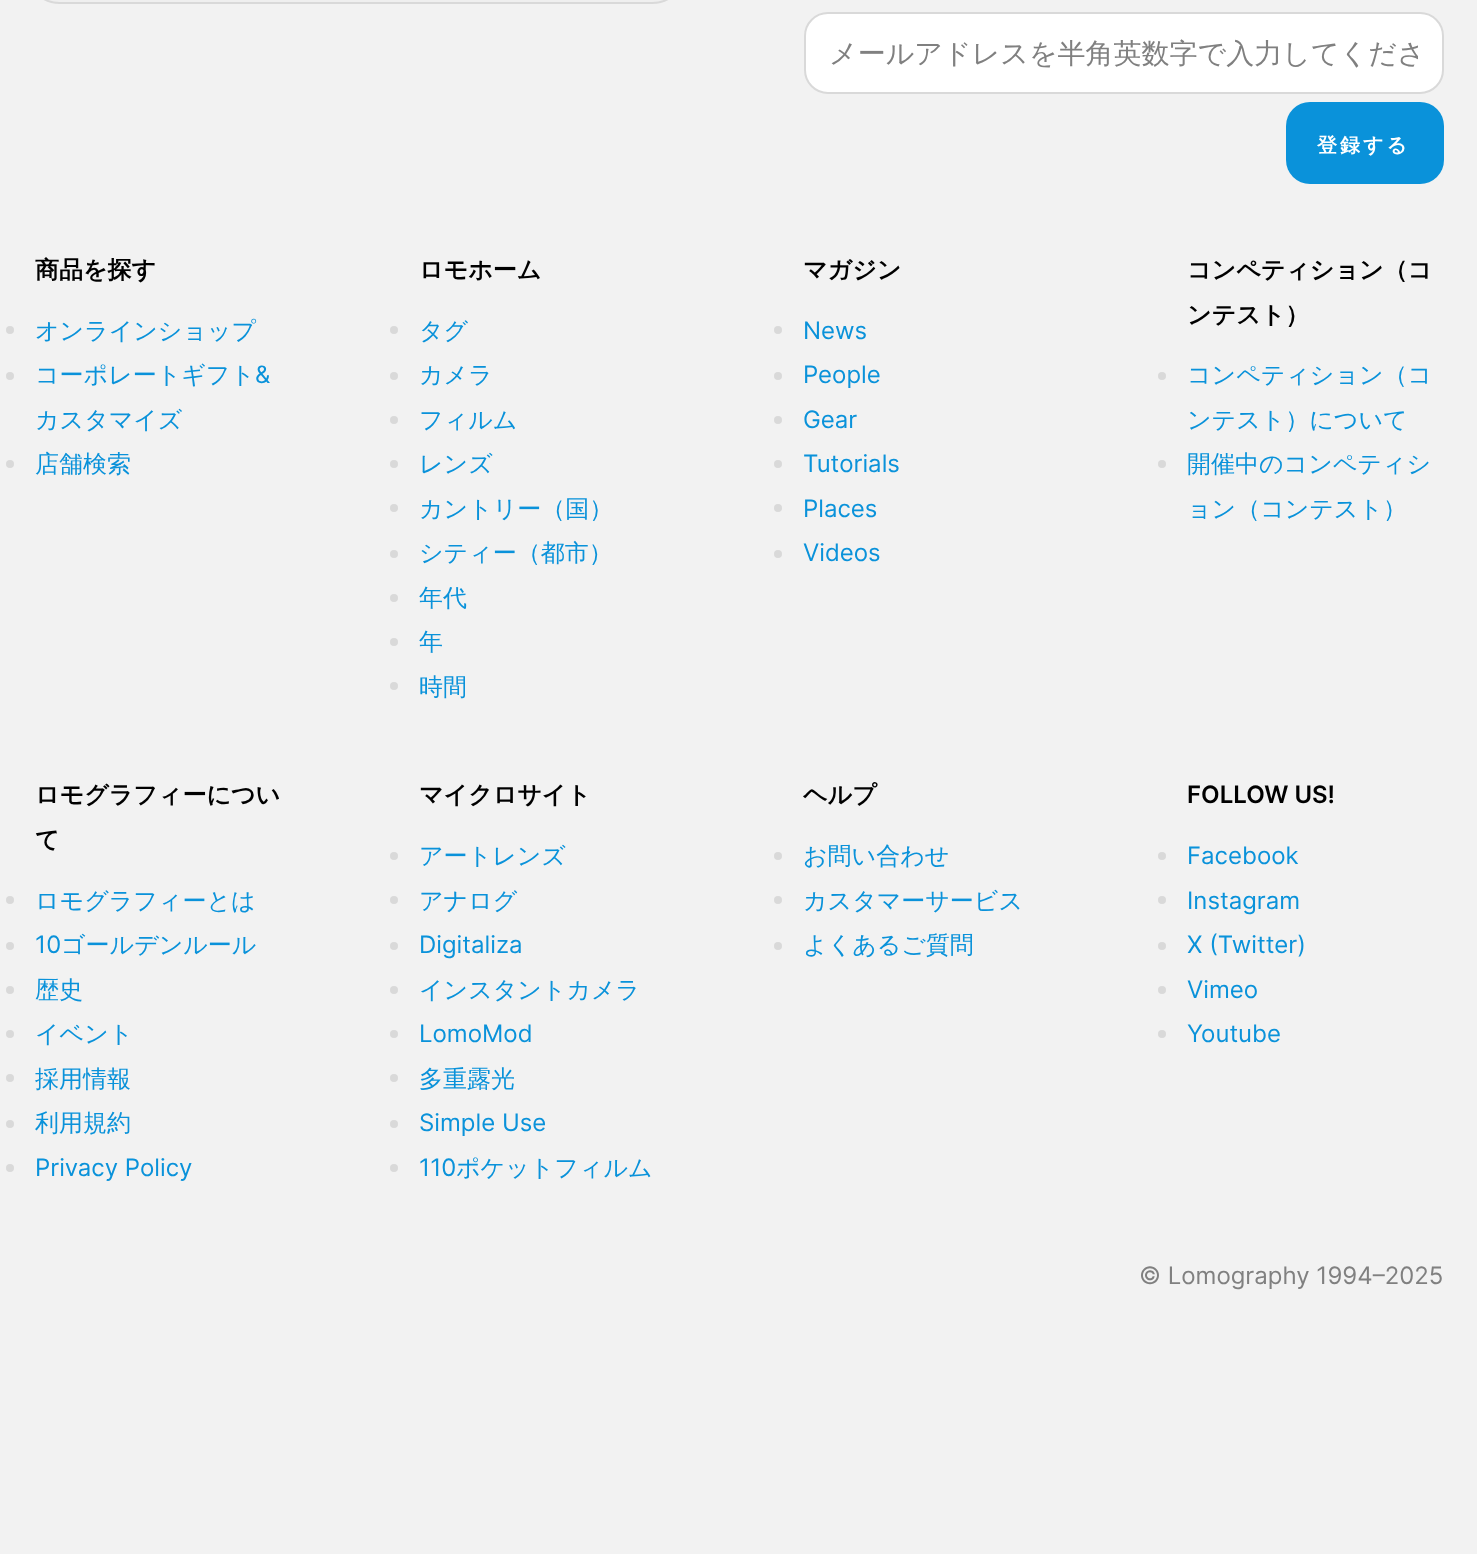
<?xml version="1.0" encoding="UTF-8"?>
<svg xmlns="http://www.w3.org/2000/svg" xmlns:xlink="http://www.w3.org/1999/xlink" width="1477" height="1554">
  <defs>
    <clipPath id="clip1"><rect x="830" y="36" width="588" height="38" /></clipPath>
  </defs>
  <rect width="100%" height="100%" fill="#f2f2f2" />
  <rect x="37" y="-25" width="638" height="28" rx="23" fill="#efefef" stroke="#d9d9d9" stroke-width="2" />
  <rect x="805" y="13" width="638" height="80" rx="23" fill="#ffffff" stroke="#d9d9d9" stroke-width="2" />
  <rect x="1286" y="102" width="158" height="82" rx="24" fill="#0a92da" />
  <circle cx="10" cy="330" r="4" fill="#d9d9d9" />
  <circle cx="10" cy="376" r="4" fill="#d9d9d9" />
  <circle cx="10" cy="464" r="4" fill="#d9d9d9" />
  <circle cx="394" cy="330" r="4" fill="#d9d9d9" />
  <circle cx="394" cy="376" r="4" fill="#d9d9d9" />
  <circle cx="394" cy="420" r="4" fill="#d9d9d9" />
  <circle cx="394" cy="464" r="4" fill="#d9d9d9" />
  <circle cx="394" cy="508" r="4" fill="#d9d9d9" />
  <circle cx="394" cy="554" r="4" fill="#d9d9d9" />
  <circle cx="394" cy="598" r="4" fill="#d9d9d9" />
  <circle cx="394" cy="642" r="4" fill="#d9d9d9" />
  <circle cx="394" cy="686" r="4" fill="#d9d9d9" />
  <circle cx="778" cy="330" r="4" fill="#d9d9d9" />
  <circle cx="778" cy="376" r="4" fill="#d9d9d9" />
  <circle cx="778" cy="420" r="4" fill="#d9d9d9" />
  <circle cx="778" cy="464" r="4" fill="#d9d9d9" />
  <circle cx="778" cy="508" r="4" fill="#d9d9d9" />
  <circle cx="778" cy="554" r="4" fill="#d9d9d9" />
  <circle cx="1162" cy="376" r="4" fill="#d9d9d9" />
  <circle cx="1162" cy="464" r="4" fill="#d9d9d9" />
  <circle cx="10" cy="900" r="4" fill="#d9d9d9" />
  <circle cx="10" cy="946" r="4" fill="#d9d9d9" />
  <circle cx="10" cy="990" r="4" fill="#d9d9d9" />
  <circle cx="10" cy="1034" r="4" fill="#d9d9d9" />
  <circle cx="10" cy="1078" r="4" fill="#d9d9d9" />
  <circle cx="10" cy="1124" r="4" fill="#d9d9d9" />
  <circle cx="10" cy="1168" r="4" fill="#d9d9d9" />
  <circle cx="394" cy="856" r="4" fill="#d9d9d9" />
  <circle cx="394" cy="900" r="4" fill="#d9d9d9" />
  <circle cx="394" cy="946" r="4" fill="#d9d9d9" />
  <circle cx="394" cy="990" r="4" fill="#d9d9d9" />
  <circle cx="394" cy="1034" r="4" fill="#d9d9d9" />
  <circle cx="394" cy="1078" r="4" fill="#d9d9d9" />
  <circle cx="394" cy="1124" r="4" fill="#d9d9d9" />
  <circle cx="394" cy="1168" r="4" fill="#d9d9d9" />
  <circle cx="778" cy="856" r="4" fill="#d9d9d9" />
  <circle cx="778" cy="900" r="4" fill="#d9d9d9" />
  <circle cx="778" cy="946" r="4" fill="#d9d9d9" />
  <circle cx="1162" cy="856" r="4" fill="#d9d9d9" />
  <circle cx="1162" cy="900" r="4" fill="#d9d9d9" />
  <circle cx="1162" cy="946" r="4" fill="#d9d9d9" />
  <circle cx="1162" cy="990" r="4" fill="#d9d9d9" />
  <circle cx="1162" cy="1034" r="4" fill="#d9d9d9" />
  <g clip-path="url(#clip1)">
    <text x="829" y="63" style="font-family: WenQuanYi Zen Hei; font-size: 28px; font-weight: 500; fill: #808080">メールアドレスを半角英数字で入力してくださ</text>
  </g>
  <text x="1317" y="152" style="font-family: WenQuanYi Zen Hei; font-size: 20px; font-weight: bold; letter-spacing: 3px; fill: #ffffff">登録する</text>
  <text x="35" y="278" style="font-family: WenQuanYi Zen Hei; font-size: 24px; font-weight: bold; fill: #000000">商品を探す</text>
  <text x="35" y="339" style="font-family: WenQuanYi Zen Hei; font-size: 24px; font-weight: 500; fill: #0a92da">オンラインショップ</text>
  <text x="35" y="383" style="font-family: WenQuanYi Zen Hei; font-size: 24px; font-weight: 500; fill: #0a92da">コーポレートギフト</text>
  <text x="255" y="383" style="font-family: Inter; font-size: 24px; fill: #0a92da">&amp;</text>
  <text x="35" y="428" style="font-family: WenQuanYi Zen Hei; font-size: 24px; font-weight: 500; fill: #0a92da">カスタマイズ</text>
  <text x="35" y="472" style="font-family: WenQuanYi Zen Hei; font-size: 24px; font-weight: 500; fill: #0a92da">店舗検索</text>
  <text x="419" y="278" style="font-family: WenQuanYi Zen Hei; font-size: 24px; font-weight: bold; fill: #000000">ロモホーム</text>
  <text x="419" y="339" style="font-family: WenQuanYi Zen Hei; font-size: 24px; font-weight: 500; fill: #0a92da">タグ</text>
  <text x="419" y="383" style="font-family: WenQuanYi Zen Hei; font-size: 24px; font-weight: 500; fill: #0a92da">カメラ</text>
  <text x="419" y="428" style="font-family: WenQuanYi Zen Hei; font-size: 24px; font-weight: 500; fill: #0a92da">フィルム</text>
  <text x="419" y="472" style="font-family: WenQuanYi Zen Hei; font-size: 24px; font-weight: 500; fill: #0a92da">レンズ</text>
  <text x="419" y="517" style="font-family: WenQuanYi Zen Hei; font-size: 24px; font-weight: 500; fill: #0a92da">カントリー（国）</text>
  <text x="419" y="561" style="font-family: WenQuanYi Zen Hei; font-size: 24px; font-weight: 500; fill: #0a92da">シティー（都市）</text>
  <text x="419" y="606" style="font-family: WenQuanYi Zen Hei; font-size: 24px; font-weight: 500; fill: #0a92da">年代</text>
  <text x="419" y="650" style="font-family: WenQuanYi Zen Hei; font-size: 24px; font-weight: 500; fill: #0a92da">年</text>
  <text x="419" y="695" style="font-family: WenQuanYi Zen Hei; font-size: 24px; font-weight: 500; fill: #0a92da">時間</text>
  <text x="803" y="278" style="font-family: WenQuanYi Zen Hei; font-size: 24px; font-weight: bold; fill: #000000">マガジン</text>
  <text x="803" y="339" style="font-family: Inter; font-size: 24px; fill: #0a92da">News</text>
  <text x="803" y="383" style="font-family: Inter; font-size: 24px; fill: #0a92da">People</text>
  <text x="803" y="428" style="font-family: Inter; font-size: 24px; fill: #0a92da">Gear</text>
  <text x="803" y="472" style="font-family: Inter; font-size: 24px; fill: #0a92da">Tutorials</text>
  <text x="803" y="517" style="font-family: Inter; font-size: 24px; fill: #0a92da">Places</text>
  <text x="803" y="561" style="font-family: Inter; font-size: 24px; fill: #0a92da">Videos</text>
  <text x="1187" y="278" style="font-family: WenQuanYi Zen Hei; font-size: 24px; font-weight: bold; fill: #000000">コンペティション（コ</text>
  <text x="1187" y="323" style="font-family: WenQuanYi Zen Hei; font-size: 24px; font-weight: bold; fill: #000000">ンテスト）</text>
  <text x="1187" y="383" style="font-family: WenQuanYi Zen Hei; font-size: 24px; font-weight: 500; fill: #0a92da">コンペティション（コ</text>
  <text x="1187" y="428" style="font-family: WenQuanYi Zen Hei; font-size: 24px; font-weight: 500; fill: #0a92da">ンテスト）について</text>
  <text x="1187" y="472" style="font-family: WenQuanYi Zen Hei; font-size: 24px; font-weight: 500; fill: #0a92da">開催中のコンペティシ</text>
  <text x="1187" y="517" style="font-family: WenQuanYi Zen Hei; font-size: 24px; font-weight: 500; fill: #0a92da">ョン（コンテスト）</text>
  <text x="35" y="803" style="font-family: WenQuanYi Zen Hei; font-size: 24px; font-weight: bold; fill: #000000">ロモグラフィーについ</text>
  <text x="35" y="848" style="font-family: WenQuanYi Zen Hei; font-size: 24px; font-weight: bold; fill: #000000">て</text>
  <text x="35" y="909" style="font-family: WenQuanYi Zen Hei; font-size: 24px; font-weight: 500; fill: #0a92da">ロモグラフィーとは</text>
  <text x="35" y="953" style="font-family: Inter; font-size: 24px; fill: #0a92da">10</text>
  <text x="61" y="953" style="font-family: WenQuanYi Zen Hei; font-size: 24px; font-weight: 500; fill: #0a92da">ゴールデンルール</text>
  <text x="35" y="998" style="font-family: WenQuanYi Zen Hei; font-size: 24px; font-weight: 500; fill: #0a92da">歴史</text>
  <text x="35" y="1042" style="font-family: WenQuanYi Zen Hei; font-size: 24px; font-weight: 500; fill: #0a92da">イベント</text>
  <text x="35" y="1087" style="font-family: WenQuanYi Zen Hei; font-size: 24px; font-weight: 500; fill: #0a92da">採用情報</text>
  <text x="35" y="1131" style="font-family: WenQuanYi Zen Hei; font-size: 24px; font-weight: 500; fill: #0a92da">利用規約</text>
  <text x="35" y="1176" style="font-family: Inter; font-size: 24px; fill: #0a92da">Privacy Policy</text>
  <text x="419" y="803" style="font-family: WenQuanYi Zen Hei; font-size: 24px; font-weight: bold; fill: #000000">マイクロサイト</text>
  <text x="419" y="864" style="font-family: WenQuanYi Zen Hei; font-size: 24px; font-weight: 500; fill: #0a92da">アートレンズ</text>
  <text x="419" y="909" style="font-family: WenQuanYi Zen Hei; font-size: 24px; font-weight: 500; fill: #0a92da">アナログ</text>
  <text x="419" y="953" style="font-family: Inter; font-size: 24px; fill: #0a92da">Digitaliza</text>
  <text x="419" y="998" style="font-family: WenQuanYi Zen Hei; font-size: 24px; font-weight: 500; fill: #0a92da">インスタントカメラ</text>
  <text x="419" y="1042" style="font-family: Inter; font-size: 24px; fill: #0a92da">LomoMod</text>
  <text x="419" y="1087" style="font-family: WenQuanYi Zen Hei; font-size: 24px; font-weight: 500; fill: #0a92da">多重露光</text>
  <text x="419" y="1131" style="font-family: Inter; font-size: 24px; fill: #0a92da">Simple Use</text>
  <text x="419" y="1176" style="font-family: Inter; font-size: 24px; fill: #0a92da">110</text>
  <text x="456" y="1176" style="font-family: WenQuanYi Zen Hei; font-size: 24px; font-weight: 500; fill: #0a92da">ポケットフィルム</text>
  <text x="803" y="803" style="font-family: WenQuanYi Zen Hei; font-size: 24px; font-weight: bold; fill: #000000">ヘルプ</text>
  <text x="803" y="864" style="font-family: WenQuanYi Zen Hei; font-size: 24px; font-weight: 500; fill: #0a92da">お問い合わせ</text>
  <text x="803" y="909" style="font-family: WenQuanYi Zen Hei; font-size: 24px; font-weight: 500; fill: #0a92da">カスタマーサービス</text>
  <text x="803" y="953" style="font-family: WenQuanYi Zen Hei; font-size: 24px; font-weight: 500; fill: #0a92da">よくあるご質問</text>
  <text x="1187" y="803" style="font-family: Inter; font-size: 24px; font-weight: 600; fill: #000000">FOLLOW US!</text>
  <text x="1187" y="864" style="font-family: Inter; font-size: 24px; fill: #0a92da">Facebook</text>
  <text x="1187" y="909" style="font-family: Inter; font-size: 24px; fill: #0a92da">Instagram</text>
  <text x="1187" y="953" style="font-family: Inter; font-size: 24px; fill: #0a92da">X (Twitter)</text>
  <text x="1187" y="998" style="font-family: Inter; font-size: 24px; fill: #0a92da">Vimeo</text>
  <text x="1187" y="1042" style="font-family: Inter; font-size: 24px; fill: #0a92da">Youtube</text>
  <text x="1139" y="1284" style="font-family: Inter; font-size: 24px; fill: #808080">© Lomography 1994–2025</text>
</svg>
